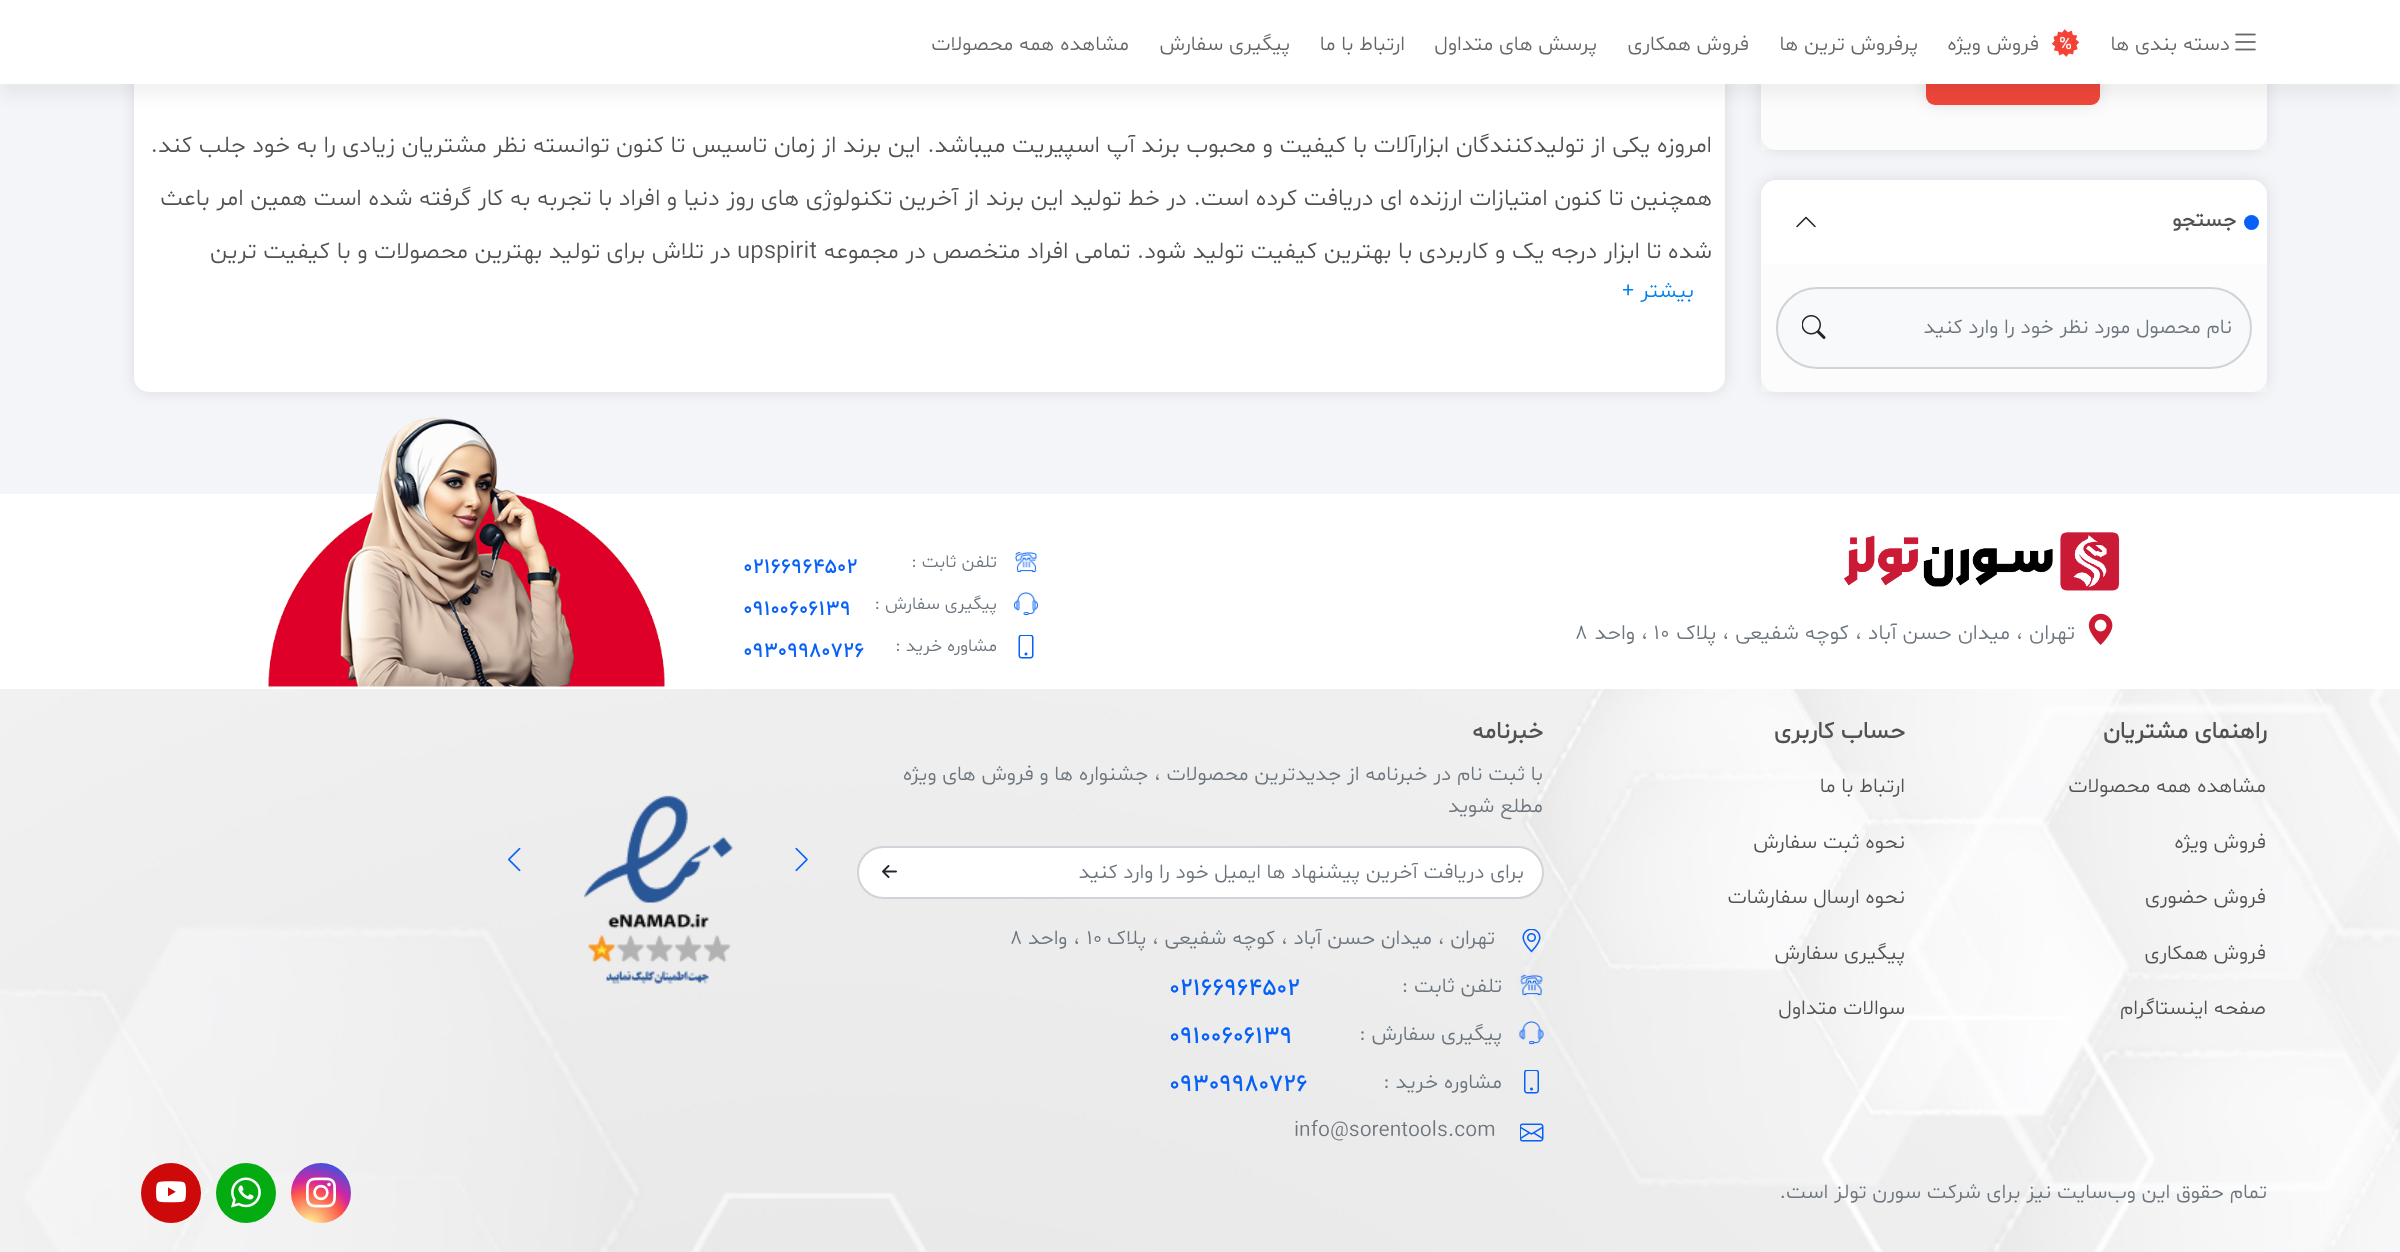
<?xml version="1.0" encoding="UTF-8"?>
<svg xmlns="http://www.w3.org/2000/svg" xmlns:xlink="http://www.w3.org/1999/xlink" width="2400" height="1252">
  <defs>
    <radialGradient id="g1" gradientUnits="userSpaceOnUse" cx="309" cy="1227" r="77"><stop offset="0" stop-color="#fdf497" /><stop offset="0.05" stop-color="#fdf497" /><stop offset="0.45" stop-color="#fd5949" /><stop offset="0.6" stop-color="#d6249f" /><stop offset="0.9" stop-color="#285aeb" /></radialGradient>
  </defs>
  <rect width="100%" height="100%" fill="#f4f5f9" />
  <rect x="1761" y="-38" width="506" height="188" rx="15" fill="#000000" fill-opacity="0.1" filter="blur(7.5px)" />
  <rect x="1761" y="-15" width="506" height="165" rx="15" fill="#ffffff" />
  <rect x="1761" y="84" width="506" height="66" fill="#fbf8f8" fill-opacity="0.47" />
  <rect x="1926" y="51" width="174" height="54" rx="9" fill="#000000" fill-opacity="0.1" filter="blur(7.5px)" />
  <rect x="1926" y="51" width="174" height="54" rx="9" fill="#ef473a" />
  <rect x="134" y="-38" width="1591" height="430" rx="15" fill="#000000" fill-opacity="0.1" filter="blur(7.5px)" />
  <rect x="134" y="-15" width="1591" height="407" rx="15" fill="#ffffff" />
  <rect y="12" width="2400" height="84" fill="#000000" fill-opacity="0.05" filter="blur(7.5px)" />
  <rect width="2400" height="84" fill="#ffffff" />
  <image x="2235" y="33" width="21" height="18" xlink:href="image1.png" />
  <image x="2051" y="29" width="29" height="28" xlink:href="image2.png" />
  <rect x="1761" y="180" width="506" height="212" rx="15" fill="#000000" fill-opacity="0.1" filter="blur(7.5px)" />
  <rect x="1761" y="180" width="506" height="212" rx="15" fill="#ffffff" />
  <circle cx="2251.5" cy="222.5" r="7.5" fill="#0761f6" />
  <image x="1796" y="216" width="20" height="12" xlink:href="image3.png" />
  <rect x="1761" y="264" width="506" height="128" fill="#fbf8f8" fill-opacity="0.47" />
  <rect x="1777" y="288" width="474" height="80" rx="40" fill="#f8f9fa" stroke="#ced4da" stroke-width="2" />
  <image x="1802" y="315" width="24" height="24" xlink:href="image4.png" />
  <rect y="494" width="2400" height="195" fill="#ffffff" />
  <image x="1843" y="532" width="277" height="59" xlink:href="image5.png" />
  <image x="2088" y="613" width="25" height="32" xlink:href="image6.png" />
  <image x="1015" y="551" width="23" height="22" xlink:href="image7.png" />
  <image x="1014" y="592" width="24" height="24" xlink:href="image8.png" />
  <image x="1018" y="635" width="16" height="24" xlink:href="image9.png" />
  <image x="268" y="417" width="397" height="270" xlink:href="image10.png" />
  <image x="0" y="689" width="2400" height="563" xlink:href="image11.png" />
  <rect x="858" y="847" width="685" height="51" rx="25.5" fill="#ffffff" stroke="#ced4da" stroke-width="2" />
  <image x="882" y="865" width="15" height="13" xlink:href="image12.png" />
  <image x="1522" y="929" width="19" height="24" xlink:href="image13.png" />
  <image x="1520" y="974" width="23" height="22" xlink:href="image14.png" />
  <image x="1519" y="1021" width="25" height="24" xlink:href="image15.png" />
  <image x="1524" y="1070" width="15" height="24" xlink:href="image16.png" />
  <image x="1520" y="1123" width="24" height="19" xlink:href="image17.png" />
  <image x="795" y="847" width="13" height="25" xlink:href="image18.png" />
  <image x="583" y="795" width="150" height="189" xlink:href="image19.png" />
  <image x="508" y="847" width="13" height="25" xlink:href="image20.png" />
  <circle cx="321" cy="1193" r="30" fill="url(#g1)" />
  <image x="306" y="1177" width="30" height="31" xlink:href="image21.png" />
  <circle cx="246" cy="1193" r="30" fill="#04ac12" />
  <image x="231" y="1177" width="30" height="31" xlink:href="image22.png" />
  <circle cx="171" cy="1193" r="30" fill="#ce0909" />
  <image x="156" y="1181" width="30" height="22" xlink:href="image23.png" />
  <text x="2230" y="50" style="font-family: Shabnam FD; font-size: 21px; font-weight: 300; direction: rtl; fill: #666666">دسته بندی ها</text>
  <text x="2039" y="50" style="font-family: Shabnam FD; font-size: 21px; font-weight: 300; direction: rtl; fill: #666666">فروش ویژه</text>
  <text x="1918" y="50" style="font-family: Shabnam FD; font-size: 21px; font-weight: 300; direction: rtl; fill: #666666">پرفروش ترین ها</text>
  <text x="1749" y="50" style="font-family: Shabnam FD; font-size: 21px; font-weight: 300; direction: rtl; fill: #666666">فروش همکاری</text>
  <text x="1597" y="50" style="font-family: Shabnam FD; font-size: 21px; font-weight: 300; direction: rtl; fill: #666666">پرسش های متداول</text>
  <text x="1405" y="50" style="font-family: Shabnam FD; font-size: 21px; font-weight: 300; direction: rtl; fill: #666666">ارتباط با ما</text>
  <text x="1290" y="50" style="font-family: Shabnam FD; font-size: 21px; font-weight: 300; direction: rtl; fill: #666666">پیگیری سفارش</text>
  <text x="1129" y="50" style="font-family: Shabnam FD; font-size: 21px; font-weight: 300; direction: rtl; fill: #666666">مشاهده همه محصولات</text>
  <text x="2236" y="226" style="font-family: Shabnam FD; font-size: 21px; font-weight: bold; direction: rtl; fill: #515151">جستجو</text>
  <text x="2232" y="333" style="font-family: Shabnam FD; font-size: 21px; font-weight: 300; direction: rtl; fill: #6c757d">نام محصول مورد نظر خود را وارد کنید</text>
  <text x="1712" y="152" style="font-family: Shabnam FD; font-size: 24px; font-weight: 300; direction: rtl; fill: #515151">امروزه یکی از تولیدکنندگان ابزارآلات با کیفیت و محبوب برند آپ اسپیریت میباشد. این برند از زمان تاسیس تا کنون توانسته نظر مشتریان زیادی را به خود جلب کند.</text>
  <text x="1712" y="205" style="font-family: Shabnam FD; font-size: 24px; font-weight: 300; direction: rtl; fill: #515151">همچنین تا کنون امتیازات ارزنده ای دریافت کرده است. در خط تولید این برند از آخرین تکنولوژی های روز دنیا و افراد با تجربه به کار گرفته شده است همین امر باعث</text>
  <text x="1712" y="258" style="font-family: Shabnam FD; font-size: 24px; font-weight: 300; direction: rtl; fill: #515151">شده تا ابزار درجه یک و کاربردی با بهترین کیفیت تولید شود. تمامی افراد متخصص در مجموعه</text>
  <text x="737" y="258" style="font-family: Shabnam FD; font-size: 24px; font-weight: 300; fill: #515151">upspirit</text>
  <text x="731" y="258" style="font-family: Shabnam FD; font-size: 24px; font-weight: 300; direction: rtl; fill: #515151">در تلاش برای تولید بهترین محصولات و با کیفیت ترین</text>
  <text x="1694" y="297" style="font-family: Shabnam FD; font-size: 21.6px; font-weight: 300; direction: rtl; fill: #007fee">بیشتر</text>
  <text x="1622" y="297" style="font-family: Shabnam FD; font-size: 21.6px; font-weight: 300; fill: #007fee">+</text>
  <text x="2075" y="639" style="font-family: Shabnam FD; font-size: 21.6px; font-weight: 300; direction: rtl; fill: #6c757d">تهران ، میدان حسن آباد ، کوچه شفیعی ، پلاک</text>
  <text x="1653" y="639" style="font-family: Shabnam FD; font-size: 21.6px; font-weight: 300; fill: #6c757d">10</text>
  <text x="1648" y="639" style="font-family: Shabnam FD; font-size: 21.6px; font-weight: 300; direction: rtl; fill: #6c757d">، واحد</text>
  <text x="1575" y="639" style="font-family: Shabnam FD; font-size: 21.6px; font-weight: 300; fill: #6c757d">8</text>
  <text x="997" y="567" style="font-family: Shabnam FD; font-size: 18px; font-weight: 300; direction: rtl; fill: #6c757d">تلفن ثابت :</text>
  <text x="743" y="573" style="font-family: Shabnam FD; font-size: 21px; font-weight: bold; fill: #0761f6">02166964502</text>
  <text x="997" y="609" style="font-family: Shabnam FD; font-size: 18px; font-weight: 300; direction: rtl; fill: #6c757d">پیگیری سفارش :</text>
  <text x="743" y="615" style="font-family: Shabnam FD; font-size: 21px; font-weight: bold; fill: #0761f6">09100606139</text>
  <text x="997" y="651" style="font-family: Shabnam FD; font-size: 18px; font-weight: 300; direction: rtl; fill: #6c757d">مشاوره خرید :</text>
  <text x="743" y="657" style="font-family: Shabnam FD; font-size: 21px; font-weight: bold; fill: #0761f6">09309980726</text>
  <text x="2267" y="738" style="font-family: Shabnam FD; font-size: 24px; font-weight: bold; direction: rtl; fill: #515151">راهنمای مشتریان</text>
  <text x="2266" y="792" style="font-family: Shabnam FD; font-size: 21px; font-weight: 300; direction: rtl; fill: #515151">مشاهده همه محصولات</text>
  <text x="2266" y="848" style="font-family: Shabnam FD; font-size: 21px; font-weight: 300; direction: rtl; fill: #515151">فروش ویژه</text>
  <text x="2266" y="903" style="font-family: Shabnam FD; font-size: 21px; font-weight: 300; direction: rtl; fill: #515151">فروش حضوری</text>
  <text x="2266" y="959" style="font-family: Shabnam FD; font-size: 21px; font-weight: 300; direction: rtl; fill: #515151">فروش همکاری</text>
  <text x="2266" y="1014" style="font-family: Shabnam FD; font-size: 21px; font-weight: 300; direction: rtl; fill: #515151">صفحه اینستاگرام</text>
  <text x="1905" y="738" style="font-family: Shabnam FD; font-size: 24px; font-weight: bold; direction: rtl; fill: #515151">حساب کاربری</text>
  <text x="1905" y="792" style="font-family: Shabnam FD; font-size: 21px; font-weight: 300; direction: rtl; fill: #515151">ارتباط با ما</text>
  <text x="1905" y="848" style="font-family: Shabnam FD; font-size: 21px; font-weight: 300; direction: rtl; fill: #515151">نحوه ثبت سفارش</text>
  <text x="1905" y="903" style="font-family: Shabnam FD; font-size: 21px; font-weight: 300; direction: rtl; fill: #515151">نحوه ارسال سفارشات</text>
  <text x="1905" y="959" style="font-family: Shabnam FD; font-size: 21px; font-weight: 300; direction: rtl; fill: #515151">پیگیری سفارش</text>
  <text x="1905" y="1014" style="font-family: Shabnam FD; font-size: 21px; font-weight: 300; direction: rtl; fill: #515151">سوالات متداول</text>
  <text x="1543" y="738" style="font-family: Shabnam FD; font-size: 24px; font-weight: bold; direction: rtl; fill: #515151">خبرنامه</text>
  <text x="1543" y="780" style="font-family: Shabnam FD; font-size: 21px; font-weight: 300; direction: rtl; fill: #6c757d">با ثبت نام در خبرنامه از جدیدترین محصولات ، جشنواره ها و فروش های ویژه</text>
  <text x="1543" y="812" style="font-family: Shabnam FD; font-size: 21px; font-weight: 300; direction: rtl; fill: #6c757d">مطلع شوید</text>
  <text x="1524" y="878" style="font-family: Shabnam FD; font-size: 21px; font-weight: 300; direction: rtl; fill: #6c757d">برای دریافت آخرین پیشنهاد ها ایمیل خود را وارد کنید</text>
  <text x="1495" y="944" style="font-family: Shabnam FD; font-size: 21px; font-weight: 300; direction: rtl; fill: #6c757d">تهران ، میدان حسن آباد ، کوچه شفیعی ، پلاک</text>
  <text x="1086" y="944" style="font-family: Shabnam FD; font-size: 21px; font-weight: 300; fill: #6c757d">10</text>
  <text x="1080" y="944" style="font-family: Shabnam FD; font-size: 21px; font-weight: 300; direction: rtl; fill: #6c757d">، واحد</text>
  <text x="1010" y="944" style="font-family: Shabnam FD; font-size: 21px; font-weight: 300; fill: #6c757d">8</text>
  <text x="1502" y="992" style="font-family: Shabnam FD; font-size: 21px; font-weight: 300; direction: rtl; fill: #6c757d">تلفن ثابت :</text>
  <text x="1169" y="995" style="font-family: Shabnam FD; font-size: 24px; font-weight: bold; fill: #0761f6">02166964502</text>
  <text x="1502" y="1040" style="font-family: Shabnam FD; font-size: 21px; font-weight: 300; direction: rtl; fill: #6c757d">پیگیری سفارش :</text>
  <text x="1169" y="1043" style="font-family: Shabnam FD; font-size: 24px; font-weight: bold; fill: #0761f6">09100606139</text>
  <text x="1502" y="1088" style="font-family: Shabnam FD; font-size: 21px; font-weight: 300; direction: rtl; fill: #6c757d">مشاوره خرید :</text>
  <text x="1169" y="1091" style="font-family: Shabnam FD; font-size: 24px; font-weight: bold; fill: #0761f6">09309980726</text>
  <text x="1294" y="1136" style="font-family: Shabnam FD; font-size: 21px; font-weight: 300; fill: #6c757d">info@sorentools.com</text>
  <text x="2267" y="1198" style="font-family: Shabnam FD; font-size: 21px; font-weight: 300; direction: rtl; fill: #6c757d">تمام حقوق اين وب‌سايت نیز برای شرکت سورن تولز است.</text>
</svg>
